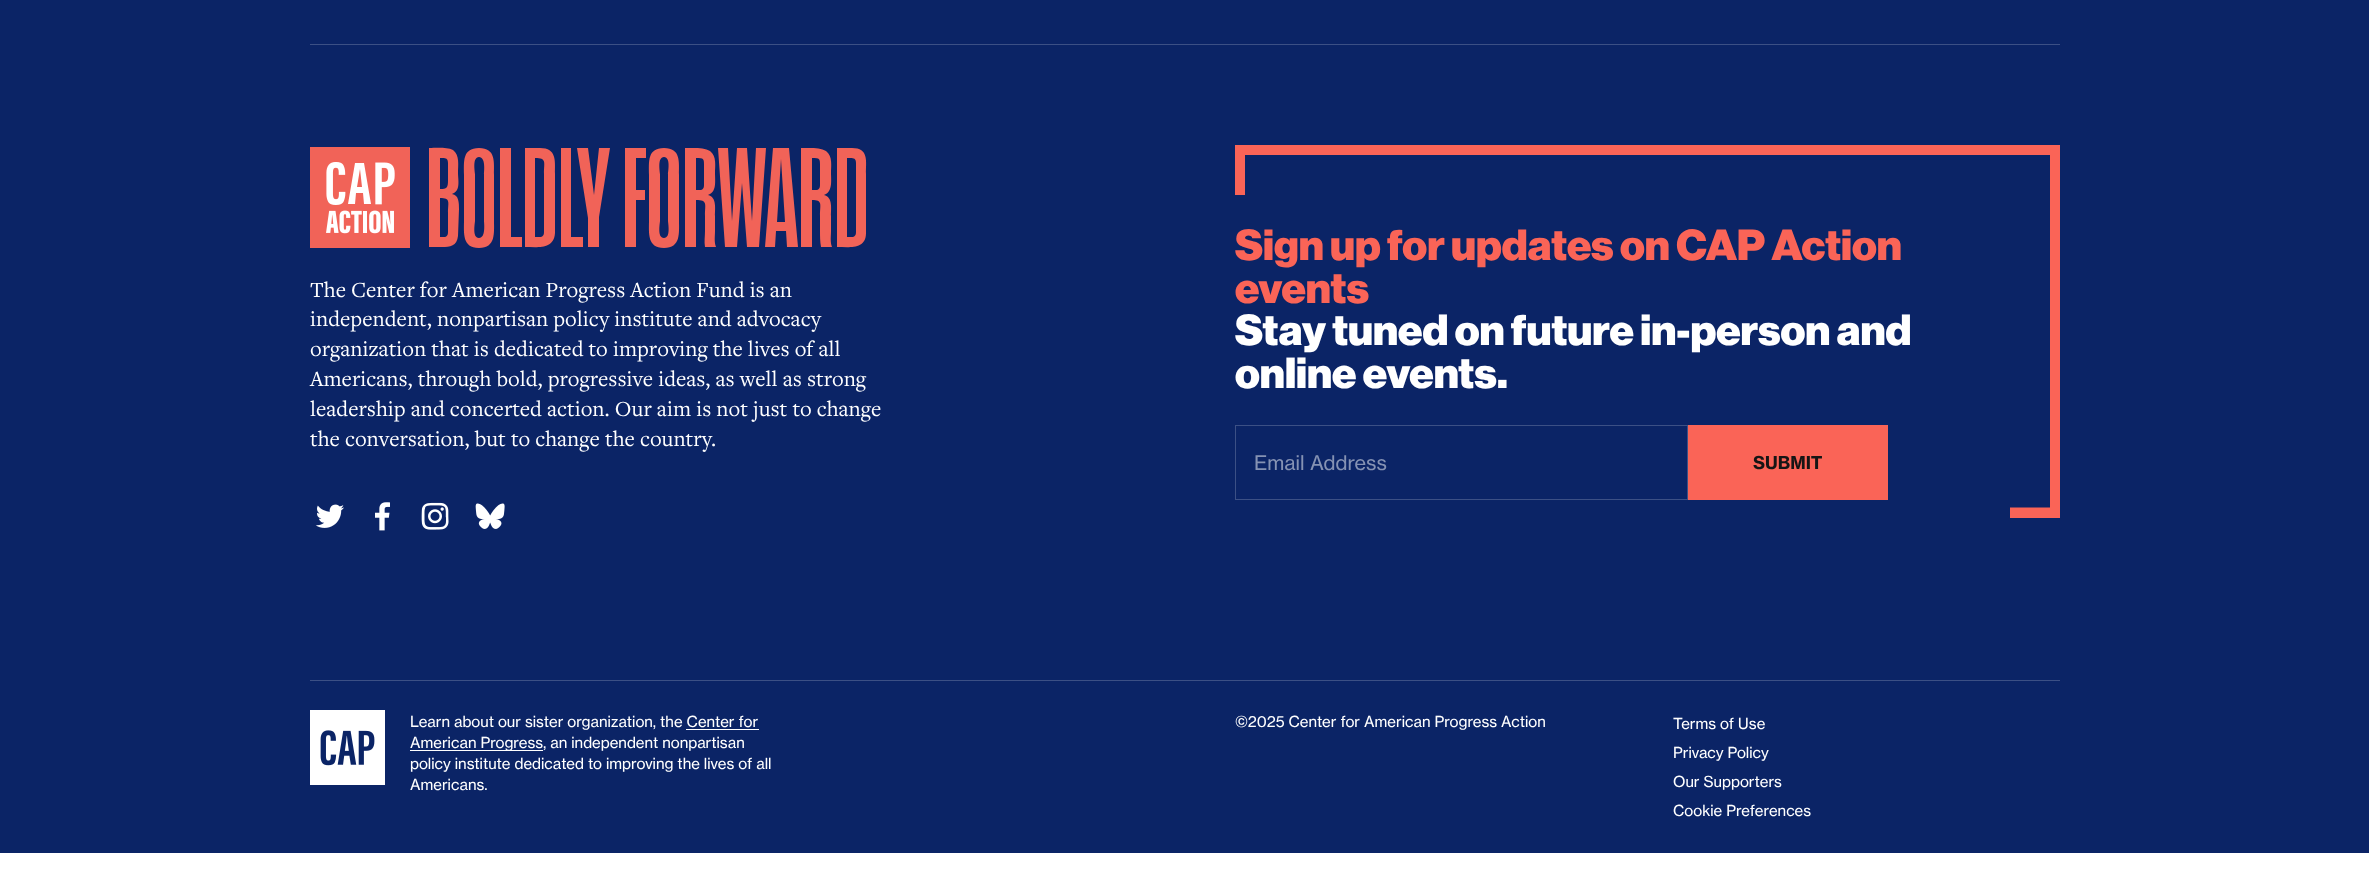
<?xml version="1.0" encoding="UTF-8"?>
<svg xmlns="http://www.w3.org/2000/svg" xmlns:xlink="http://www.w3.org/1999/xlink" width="2369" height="888">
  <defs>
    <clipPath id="clip1"><rect x="1235" y="145" width="825" height="373" /></clipPath>
  </defs>
  <rect width="100%" height="100%" fill="#ffffff" />
  <rect width="2369" height="853" fill="#0b2466" />
  <rect x="310" y="44" width="1750" height="1" fill="#3c5085" />
  <rect x="310" y="147" width="100" height="101" fill="#f16358" />
  <path d="M 452 194 c 9 -3 6 -14 6 -21 c 0 -7 2 -18 -5 -23 c -6 -3 -17 -2 -24 -2 v 99 h 13 c 8 0 15 -1 16 -11 l 1 -27 c 0 -6 0 -14 -7 -15 z m -4 -31 v 17 c 0 8 -1 9 -8 9 v -31 c 4 0 8 -1 8 5 z m 0 69 c 0 6 -4 5 -8 5 v -39 c 11 0 8 4 8 15 z" fill="#f16358" />
  <path d="M 479 248 c 17 0 15 -15 15 -28 v -45 c 0 -13 2 -27 -15 -27 c -17 0 -15 14 -15 27 v 45 c 0 13 -2 28 15 28 z m 0 -10 c -7 0 -4 -15 -4 -17 v -47 c 0 -2 -3 -17 4 -17 c 7 0 5 15 5 17 v 47 c 0 2 2 17 -5 17 z" fill="#f16358" />
  <path d="M 500 247 h 22 v -10 h -11 v -89 h -11 z" fill="#f16358" />
  <path d="M 540 148 h -15 v 99 c 12 0 29 3 30 -14 v -59 c 0 -13 2 -26 -15 -26 z m 4 84 c 0 6 -4 5 -9 5 v -79 c 12 0 9 4 9 16 z" fill="#f16358" />
  <path d="M 561 247 h 22 v -10 h -12 v -89 h -10 z" fill="#f16358" />
  <path d="M 588 247 h 11 v -30 l 11 -69 h -11 l -5 47 l -6 -47 h -11 l 11 70 z" fill="#f16358" />
  <path d="M 646 158 v -10 h -21 v 99 h 11 v -47 h 9 v -10 h -9 v -32 z" fill="#f16358" />
  <path d="M 664 248 c 17 0 15 -15 15 -28 v -45 c 0 -13 2 -27 -15 -27 c -17 0 -15 14 -15 27 v 45 c 0 13 -2 28 15 28 z m 0 -10 c -7 0 -4 -15 -4 -17 v -47 c 0 -2 -3 -17 4 -17 c 7 0 4 15 4 17 v 47 c 0 2 3 17 -4 17 z" fill="#f16358" />
  <path d="M 705 247 h 11 c -2 -5 -1 -11 -1 -16 v -15 c 0 -7 2 -19 -7 -21 c 9 -3 7 -14 7 -22 c 0 -6 2 -17 -5 -22 c -6 -4 -18 -3 -25 -3 v 99 h 11 v -47 c 12 0 9 4 9 16 v 15 c 0 5 -1 11 0 16 z m -1 -62 c 0 6 -4 5 -8 5 v -32 c 8 0 8 0 8 9 z" fill="#f16358" />
  <path d="M 725 247 h 12 l 5 -64 l 5 64 h 12 l 7 -99 h -10 l -4 73 l -5 -73 h -10 l -5 73 l -4 -73 h -10 z" fill="#f16358" />
  <path d="M 787 247 h 11 l -9 -99 h -16 l -8 99 h 10 l 1 -16 h 10 z m -10 -25 l 4 -63 l 4 63 z" fill="#f16358" />
  <path d="M 821 247 h 11 c -2 -5 -1 -11 -1 -16 v -15 c 0 -7 2 -19 -7 -21 c 9 -3 7 -15 7 -22 c 0 -6 2 -17 -5 -22 c -6 -4 -18 -3 -25 -3 v 99 h 11 v -47 c 11 0 8 4 8 16 v 15 c 0 5 0 11 1 16 z m -1 -62 c 0 6 -4 5 -8 5 v -32 c 8 0 8 0 8 9 z" fill="#f16358" />
  <path d="M 852 148 h -15 v 99 c 12 0 29 3 29 -14 v -59 c 0 -13 3 -26 -14 -26 z m 4 84 c 0 6 -4 5 -9 5 v -79 c 5 0 9 -1 9 5 z" fill="#f16358" />
  <image x="326" y="162" width="20" height="43" xlink:href="image1.png" />
  <path d="M 356 193 l -1 11 h -7 l 7 -41 h 9 l 7 41 h -7 l -1 -11 z m 6 -6 l -2 -18 l -3 18 z" fill="#ffffff" />
  <image x="375" y="162" width="20" height="43" xlink:href="image2.png" />
  <image x="326" y="210" width="13" height="23" xlink:href="image3.png" />
  <image x="339" y="210" width="12" height="24" xlink:href="image4.png" />
  <image x="351" y="210" width="11" height="23" xlink:href="image5.png" />
  <rect x="363" y="211" width="4" height="22" fill="#ffffff" />
  <image x="369" y="210" width="12" height="24" xlink:href="image6.png" />
  <image x="382" y="210" width="12" height="23" xlink:href="image7.png" />
  <image x="315" y="504" width="29" height="24" xlink:href="image8.png" />
  <image x="375" y="502" width="15" height="29" xlink:href="image9.png" />
  <image x="421" y="502" width="28" height="28" xlink:href="image10.png" />
  <image x="475" y="503" width="30" height="26" xlink:href="image11.png" />
  <g clip-path="url(#clip1)">
    <path d="M 1235 499 v -354 h 825 v 372.5 h -825" fill="none" stroke="#fa6457" stroke-width="20" stroke-linecap="square" />
  </g>
  <rect x="1235" y="195" width="10" height="200" fill="#0b2466" />
  <rect x="1235" y="395" width="775" height="123" fill="#0b2466" />
  <rect x="1235.5" y="425.5" width="452" height="74" fill="none" stroke="#3c5085" />
  <rect x="1688" y="425" width="200" height="75" fill="#fa6457" />
  <rect x="310" y="680" width="1750" height="1" fill="#3c5085" />
  <rect x="310" y="710" width="75" height="75" fill="#ffffff" />
  <image x="320" y="730" width="55" height="36" xlink:href="image12.png" />
  <rect x="686" y="729" width="73" height="1" fill="#ffffff" />
  <rect x="410" y="750" width="133" height="1" fill="#ffffff" />
  <text x="310" y="297" style="font-family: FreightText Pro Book; font-size: 22.5px; fill: #ffffff">The Center for American Progress Action Fund is an</text>
  <text x="310" y="326" style="font-family: FreightText Pro Book; font-size: 22.5px; fill: #ffffff">independent, nonpartisan policy institute and advocacy</text>
  <text x="310" y="356" style="font-family: FreightText Pro Book; font-size: 22.5px; fill: #ffffff">organization that is dedicated to improving the lives of all</text>
  <text x="310" y="386" style="font-family: FreightText Pro Book; font-size: 22.5px; fill: #ffffff">Americans, through bold, progressive ideas, as well as strong</text>
  <text x="310" y="416" style="font-family: FreightText Pro Book; font-size: 22.5px; fill: #ffffff">leadership and concerted action. Our aim is not just to change</text>
  <text x="310" y="446" style="font-family: FreightText Pro Book; font-size: 22.5px; fill: #ffffff">the conversation, but to change the country.</text>
  <text x="1235" y="260" style="font-family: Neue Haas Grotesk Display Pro; font-size: 42.5px; font-weight: 900; fill: #fa6457">Sign up for updates on CAP Action</text>
  <text x="1235" y="303" style="font-family: Neue Haas Grotesk Display Pro; font-size: 42.5px; font-weight: 900; fill: #fa6457">events</text>
  <text x="1235" y="345" style="font-family: Neue Haas Grotesk Display Pro; font-size: 42.5px; font-weight: 900; fill: #ffffff">Stay tuned on future in-person and</text>
  <text x="1235" y="388" style="font-family: Neue Haas Grotesk Display Pro; font-size: 42.5px; font-weight: 900; fill: #ffffff">online events.</text>
  <text x="1254" y="470" style="font-family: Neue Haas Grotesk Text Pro; font-size: 20px; fill: #8592b3">Email Address</text>
  <text x="1753" y="469" style="font-family: Neue Haas Grotesk Text Pro; font-size: 17.5px; font-weight: bold; fill: #151515">SUBMIT</text>
  <text x="410" y="727" style="font-family: Neue Haas Grotesk Text Pro; font-size: 15px; fill: #ffffff">Learn about our sister organization, the Center for</text>
  <text x="410" y="748" style="font-family: Neue Haas Grotesk Text Pro; font-size: 15px; fill: #ffffff">American Progress, an independent nonpartisan</text>
  <text x="410" y="769" style="font-family: Neue Haas Grotesk Text Pro; font-size: 15px; fill: #ffffff">policy institute dedicated to improving the lives of all</text>
  <text x="410" y="790" style="font-family: Neue Haas Grotesk Text Pro; font-size: 15px; fill: #ffffff">Americans.</text>
  <text x="1235" y="727" style="font-family: Neue Haas Grotesk Text Pro; font-size: 15px; fill: #ffffff">©2025 Center for American Progress Action</text>
  <text x="1673" y="729" style="font-family: Neue Haas Grotesk Text Pro; font-size: 15px; fill: #ffffff">Terms of Use</text>
  <text x="1673" y="758" style="font-family: Neue Haas Grotesk Text Pro; font-size: 15px; fill: #ffffff">Privacy Policy</text>
  <text x="1673" y="787" style="font-family: Neue Haas Grotesk Text Pro; font-size: 15px; fill: #ffffff">Our Supporters</text>
  <text x="1673" y="816" style="font-family: Neue Haas Grotesk Text Pro; font-size: 15px; fill: #ffffff">Cookie Preferences</text>
</svg>
